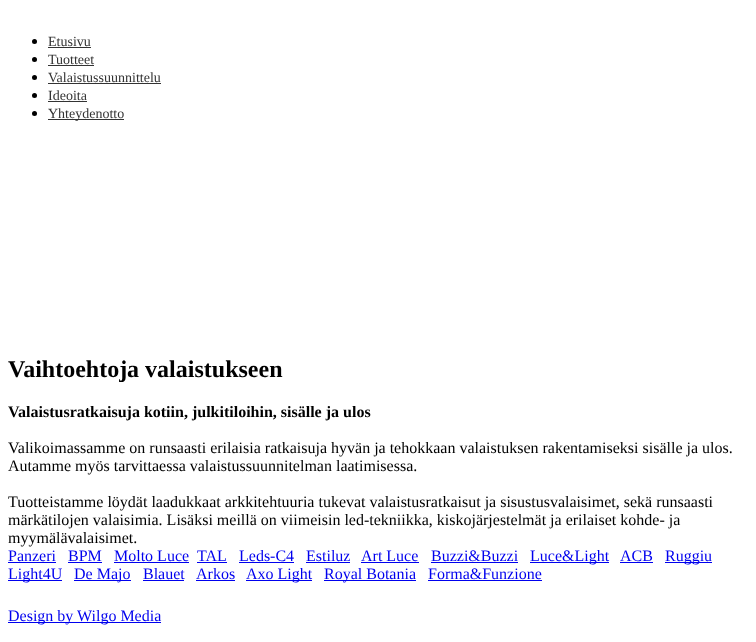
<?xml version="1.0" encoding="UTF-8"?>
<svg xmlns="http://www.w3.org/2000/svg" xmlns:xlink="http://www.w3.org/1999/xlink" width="756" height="642">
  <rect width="100%" height="100%" fill="#ffffff" />
  <circle cx="34.5" cy="41.5" r="2.5" fill="#000000" />
  <rect x="48" y="47" width="43" height="1" fill="#333333" />
  <circle cx="34.5" cy="59.5" r="2.5" fill="#000000" />
  <rect x="48" y="65" width="46" height="1" fill="#333333" />
  <circle cx="34.5" cy="77.5" r="2.5" fill="#000000" />
  <rect x="48" y="83" width="113" height="1" fill="#333333" />
  <circle cx="34.5" cy="95.5" r="2.5" fill="#000000" />
  <rect x="48" y="101" width="39" height="1" fill="#333333" />
  <circle cx="34.5" cy="113.5" r="2.5" fill="#000000" />
  <rect x="48" y="119" width="76" height="1" fill="#333333" />
  <rect x="8" y="562" width="48" height="1" fill="#0000ee" />
  <rect x="68" y="562" width="34" height="1" fill="#0000ee" />
  <rect x="114" y="562" width="75" height="1" fill="#0000ee" />
  <rect x="197" y="562" width="30" height="1" fill="#0000ee" />
  <rect x="239" y="562" width="55" height="1" fill="#0000ee" />
  <rect x="306" y="562" width="44" height="1" fill="#0000ee" />
  <rect x="361" y="562" width="58" height="1" fill="#0000ee" />
  <rect x="431" y="562" width="87" height="1" fill="#0000ee" />
  <rect x="530" y="562" width="79" height="1" fill="#0000ee" />
  <rect x="620" y="562" width="33" height="1" fill="#0000ee" />
  <rect x="665" y="562" width="47" height="1" fill="#0000ee" />
  <rect x="8" y="580" width="54" height="1" fill="#0000ee" />
  <rect x="74" y="580" width="57" height="1" fill="#0000ee" />
  <rect x="143" y="580" width="41" height="1" fill="#0000ee" />
  <rect x="196" y="580" width="39" height="1" fill="#0000ee" />
  <rect x="246" y="580" width="66" height="1" fill="#0000ee" />
  <rect x="324" y="580" width="92" height="1" fill="#0000ee" />
  <rect x="428" y="580" width="114" height="1" fill="#0000ee" />
  <rect x="8" y="622" width="153" height="1" fill="#0000ee" />
  <text x="48" y="46" style="font-family: Liberation Serif; font-size: 14px; fill: #333333">Etusivu</text>
  <text x="48" y="64" style="font-family: Liberation Serif; font-size: 14px; fill: #333333">Tuotteet</text>
  <text x="48" y="82" style="font-family: Liberation Serif; font-size: 14px; fill: #333333">Valaistussuunnittelu</text>
  <text x="48" y="100" style="font-family: Liberation Serif; font-size: 14px; fill: #333333">Ideoita</text>
  <text x="48" y="118" style="font-family: Liberation Serif; font-size: 14px; fill: #333333">Yhteydenotto</text>
  <text x="8" y="377" style="font-family: Liberation Serif; font-size: 24px; font-weight: bold; fill: #000000">Vaihtoehtoja valaistukseen</text>
  <text x="8" y="417" style="font-family: Liberation Serif; font-size: 16px; font-weight: bold; fill: #000000">Valaistusratkaisuja kotiin, julkitiloihin, sisälle ja ulos</text>
  <text x="8" y="453" style="font-family: Liberation Serif; font-size: 16px; fill: #000000">Valikoimassamme on runsaasti erilaisia ratkaisuja hyvän ja tehokkaan valaistuksen rakentamiseksi sisälle ja ulos.</text>
  <text x="8" y="471" style="font-family: Liberation Serif; font-size: 16px; fill: #000000">Autamme myös tarvittaessa valaistussuunnitelman laatimisessa.</text>
  <text x="8" y="507" style="font-family: Liberation Serif; font-size: 16px; fill: #000000">Tuotteistamme löydät laadukkaat arkkitehtuuria tukevat valaistusratkaisut ja sisustusvalaisimet, sekä runsaasti</text>
  <text x="8" y="525" style="font-family: Liberation Serif; font-size: 16px; fill: #000000">märkätilojen valaisimia. Lisäksi meillä on viimeisin led-tekniikka, kiskojärjestelmät ja erilaiset kohde- ja</text>
  <text x="8" y="543" style="font-family: Liberation Serif; font-size: 16px; fill: #000000">myymälävalaisimet.</text>
  <text x="8" y="561" style="font-family: Liberation Serif; font-size: 16px; fill: #0000ee">Panzeri</text>
  <text x="68" y="561" style="font-family: Liberation Serif; font-size: 16px; fill: #0000ee">BPM</text>
  <text x="114" y="561" style="font-family: Liberation Serif; font-size: 16px; fill: #0000ee">Molto Luce</text>
  <text x="197" y="561" style="font-family: Liberation Serif; font-size: 16px; fill: #0000ee">TAL</text>
  <text x="239" y="561" style="font-family: Liberation Serif; font-size: 16px; fill: #0000ee">Leds-C4</text>
  <text x="306" y="561" style="font-family: Liberation Serif; font-size: 16px; fill: #0000ee">Estiluz</text>
  <text x="361" y="561" style="font-family: Liberation Serif; font-size: 16px; fill: #0000ee">Art Luce</text>
  <text x="431" y="561" style="font-family: Liberation Serif; font-size: 16px; fill: #0000ee">Buzzi&amp;Buzzi</text>
  <text x="530" y="561" style="font-family: Liberation Serif; font-size: 16px; fill: #0000ee">Luce&amp;Light</text>
  <text x="620" y="561" style="font-family: Liberation Serif; font-size: 16px; fill: #0000ee">ACB</text>
  <text x="665" y="561" style="font-family: Liberation Serif; font-size: 16px; fill: #0000ee">Ruggiu</text>
  <text x="8" y="579" style="font-family: Liberation Serif; font-size: 16px; fill: #0000ee">Light4U</text>
  <text x="74" y="579" style="font-family: Liberation Serif; font-size: 16px; fill: #0000ee">De Majo</text>
  <text x="143" y="579" style="font-family: Liberation Serif; font-size: 16px; fill: #0000ee">Blauet</text>
  <text x="196" y="579" style="font-family: Liberation Serif; font-size: 16px; fill: #0000ee">Arkos</text>
  <text x="246" y="579" style="font-family: Liberation Serif; font-size: 16px; fill: #0000ee">Axo Light</text>
  <text x="324" y="579" style="font-family: Liberation Serif; font-size: 16px; fill: #0000ee">Royal Botania</text>
  <text x="428" y="579" style="font-family: Liberation Serif; font-size: 16px; fill: #0000ee">Forma&amp;Funzione</text>
  <text x="8" y="621" style="font-family: Liberation Serif; font-size: 16px; fill: #0000ee">Design by Wilgo Media</text>
</svg>
